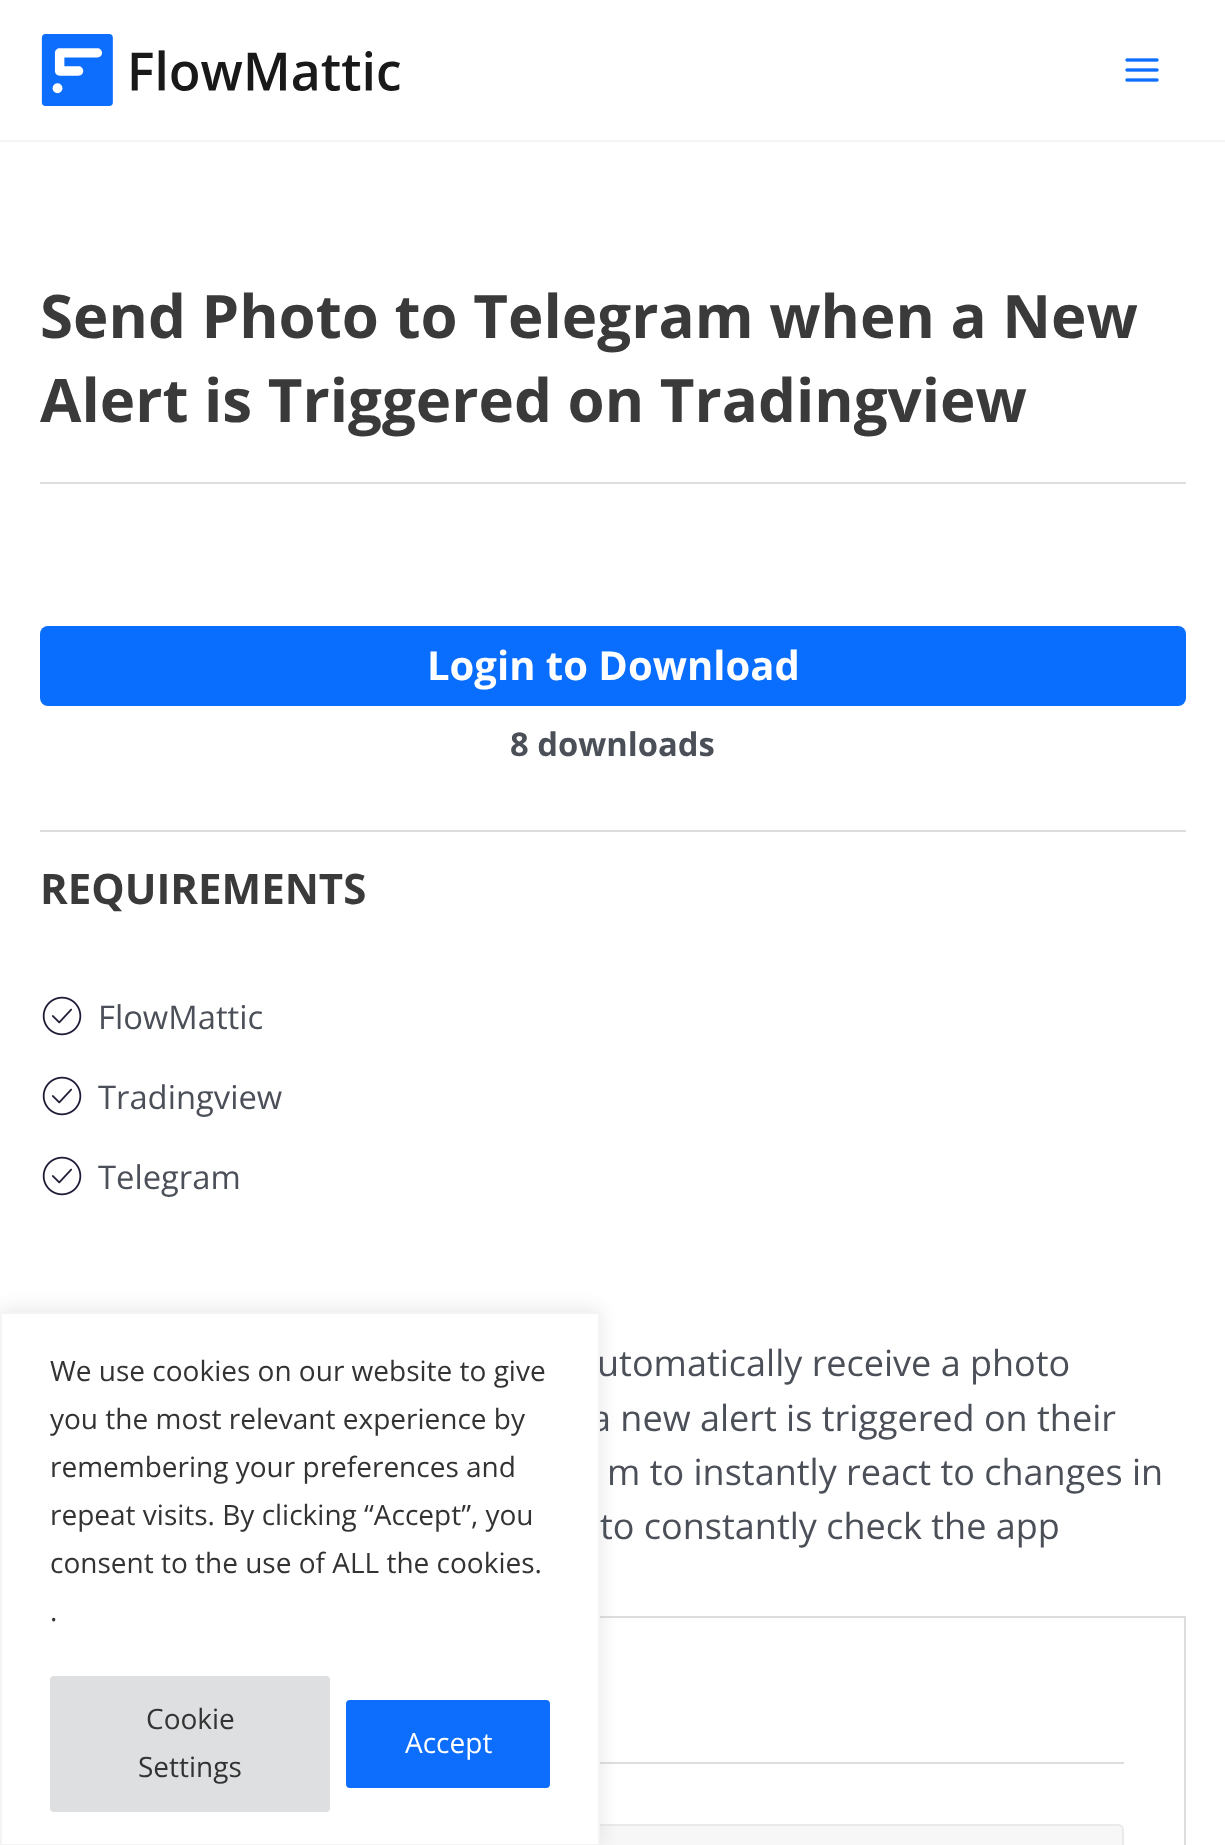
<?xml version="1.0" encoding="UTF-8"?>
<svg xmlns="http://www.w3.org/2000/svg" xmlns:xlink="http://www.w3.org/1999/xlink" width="1225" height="1845">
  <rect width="100%" height="100%" fill="#ffffff" />
  <rect y="140" width="1225" height="2" fill="#f5f5f5" />
  <image x="41" y="34" width="359" height="72" xlink:href="image1.png" />
  <image x="1125" y="58" width="34" height="24" xlink:href="image2.png" />
  <rect x="40" y="482" width="1146" height="2" fill="#dddddd" />
  <rect x="40" y="830" width="1146" height="2" fill="#dddddd" />
  <rect x="40" y="626" width="1146" height="80" rx="8" fill="#096efe" />
  <image x="42" y="996" width="40" height="40" xlink:href="image3.png" />
  <image x="42" y="1076" width="40" height="40" xlink:href="image3.png" />
  <image x="42" y="1156" width="40" height="40" xlink:href="image3.png" />
  <rect x="41" y="1617" width="1144" height="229" fill="none" stroke="#dddddd" stroke-width="2" />
  <rect x="600" y="1762" width="524" height="2" fill="#dddddd" />
  <rect x="103" y="1825" width="1020" height="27" rx="5" fill="#f7f7f7" stroke="#eaeaea" stroke-width="2" />
  <rect y="1310" width="600" height="534" fill="#acabab" fill-opacity="0.3" filter="blur(10px)" />
  <text x="40" y="338" style="font-family: Open Sans; font-size: 60px; font-weight: bold; fill: #3a3a3a">Send Photo to Telegram when a New</text>
  <text x="40" y="422" style="font-family: Open Sans; font-size: 60px; font-weight: bold; fill: #3a3a3a">Alert is Triggered on Tradingview</text>
  <text x="427" y="680" style="font-family: Open Sans; font-size: 40px; font-weight: bold; fill: #ffffff">Login to Download</text>
  <text x="510" y="756" style="font-family: Open Sans; font-size: 32.75px; font-weight: bold; fill: #4b4f58">8 downloads</text>
  <text x="40" y="904" style="font-family: Open Sans; font-size: 42px; font-weight: bold; fill: #3a3a3a">REQUIREMENTS</text>
  <text x="98" y="1029" style="font-family: Open Sans; font-size: 32.75px; fill: #4b4f58">FlowMattic</text>
  <text x="98" y="1109" style="font-family: Open Sans; font-size: 32.75px; fill: #4b4f58">Tradingview</text>
  <text x="98" y="1189" style="font-family: Open Sans; font-size: 32.75px; fill: #4b4f58">Telegram</text>
  <text x="597" y="1376" style="font-family: Open Sans; font-size: 36px; fill: #4b4f58">utomatically receive a photo</text>
  <text x="591" y="1431" style="font-family: Open Sans; font-size: 36px; fill: #4b4f58">a new alert is triggered on their</text>
  <text x="607" y="1485" style="font-family: Open Sans; font-size: 36px; fill: #4b4f58">m to instantly react to changes in</text>
  <text x="600" y="1539" style="font-family: Open Sans; font-size: 36px; fill: #4b4f58">to constantly check the app</text>
  <rect x="1" y="1313" width="598" height="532" fill="#ffffff" stroke="#f4f4f4" stroke-width="2" />
  <text x="50" y="1381" style="font-family: Open Sans; font-size: 28px; fill: #333333">We use cookies on our website to give</text>
  <text x="50" y="1429" style="font-family: Open Sans; font-size: 28px; fill: #333333">you the most relevant experience by</text>
  <text x="50" y="1477" style="font-family: Open Sans; font-size: 28px; fill: #333333">remembering your preferences and</text>
  <text x="50" y="1525" style="font-family: Open Sans; font-size: 28px; fill: #333333">repeat visits. By clicking “Accept”, you</text>
  <text x="50" y="1573" style="font-family: Open Sans; font-size: 28px; fill: #333333">consent to the use of ALL the cookies.</text>
  <text x="50" y="1621" style="font-family: Open Sans; font-size: 28px; fill: #333333">.</text>
  <rect x="52" y="1678" width="276" height="132" rx="2" fill="#dedfe0" stroke="#dedfe0" stroke-width="4" />
  <text x="146" y="1729" style="font-family: Open Sans; font-size: 28px; fill: #333333">Cookie</text>
  <text x="138" y="1777" style="font-family: Open Sans; font-size: 28px; fill: #333333">Settings</text>
  <rect x="348" y="1702" width="200" height="84" rx="2" fill="#0d6efd" stroke="#0d6efd" stroke-width="4" />
  <text x="405" y="1753" style="font-family: Open Sans; font-size: 28px; fill: #ffffff">Accept</text>
</svg>
